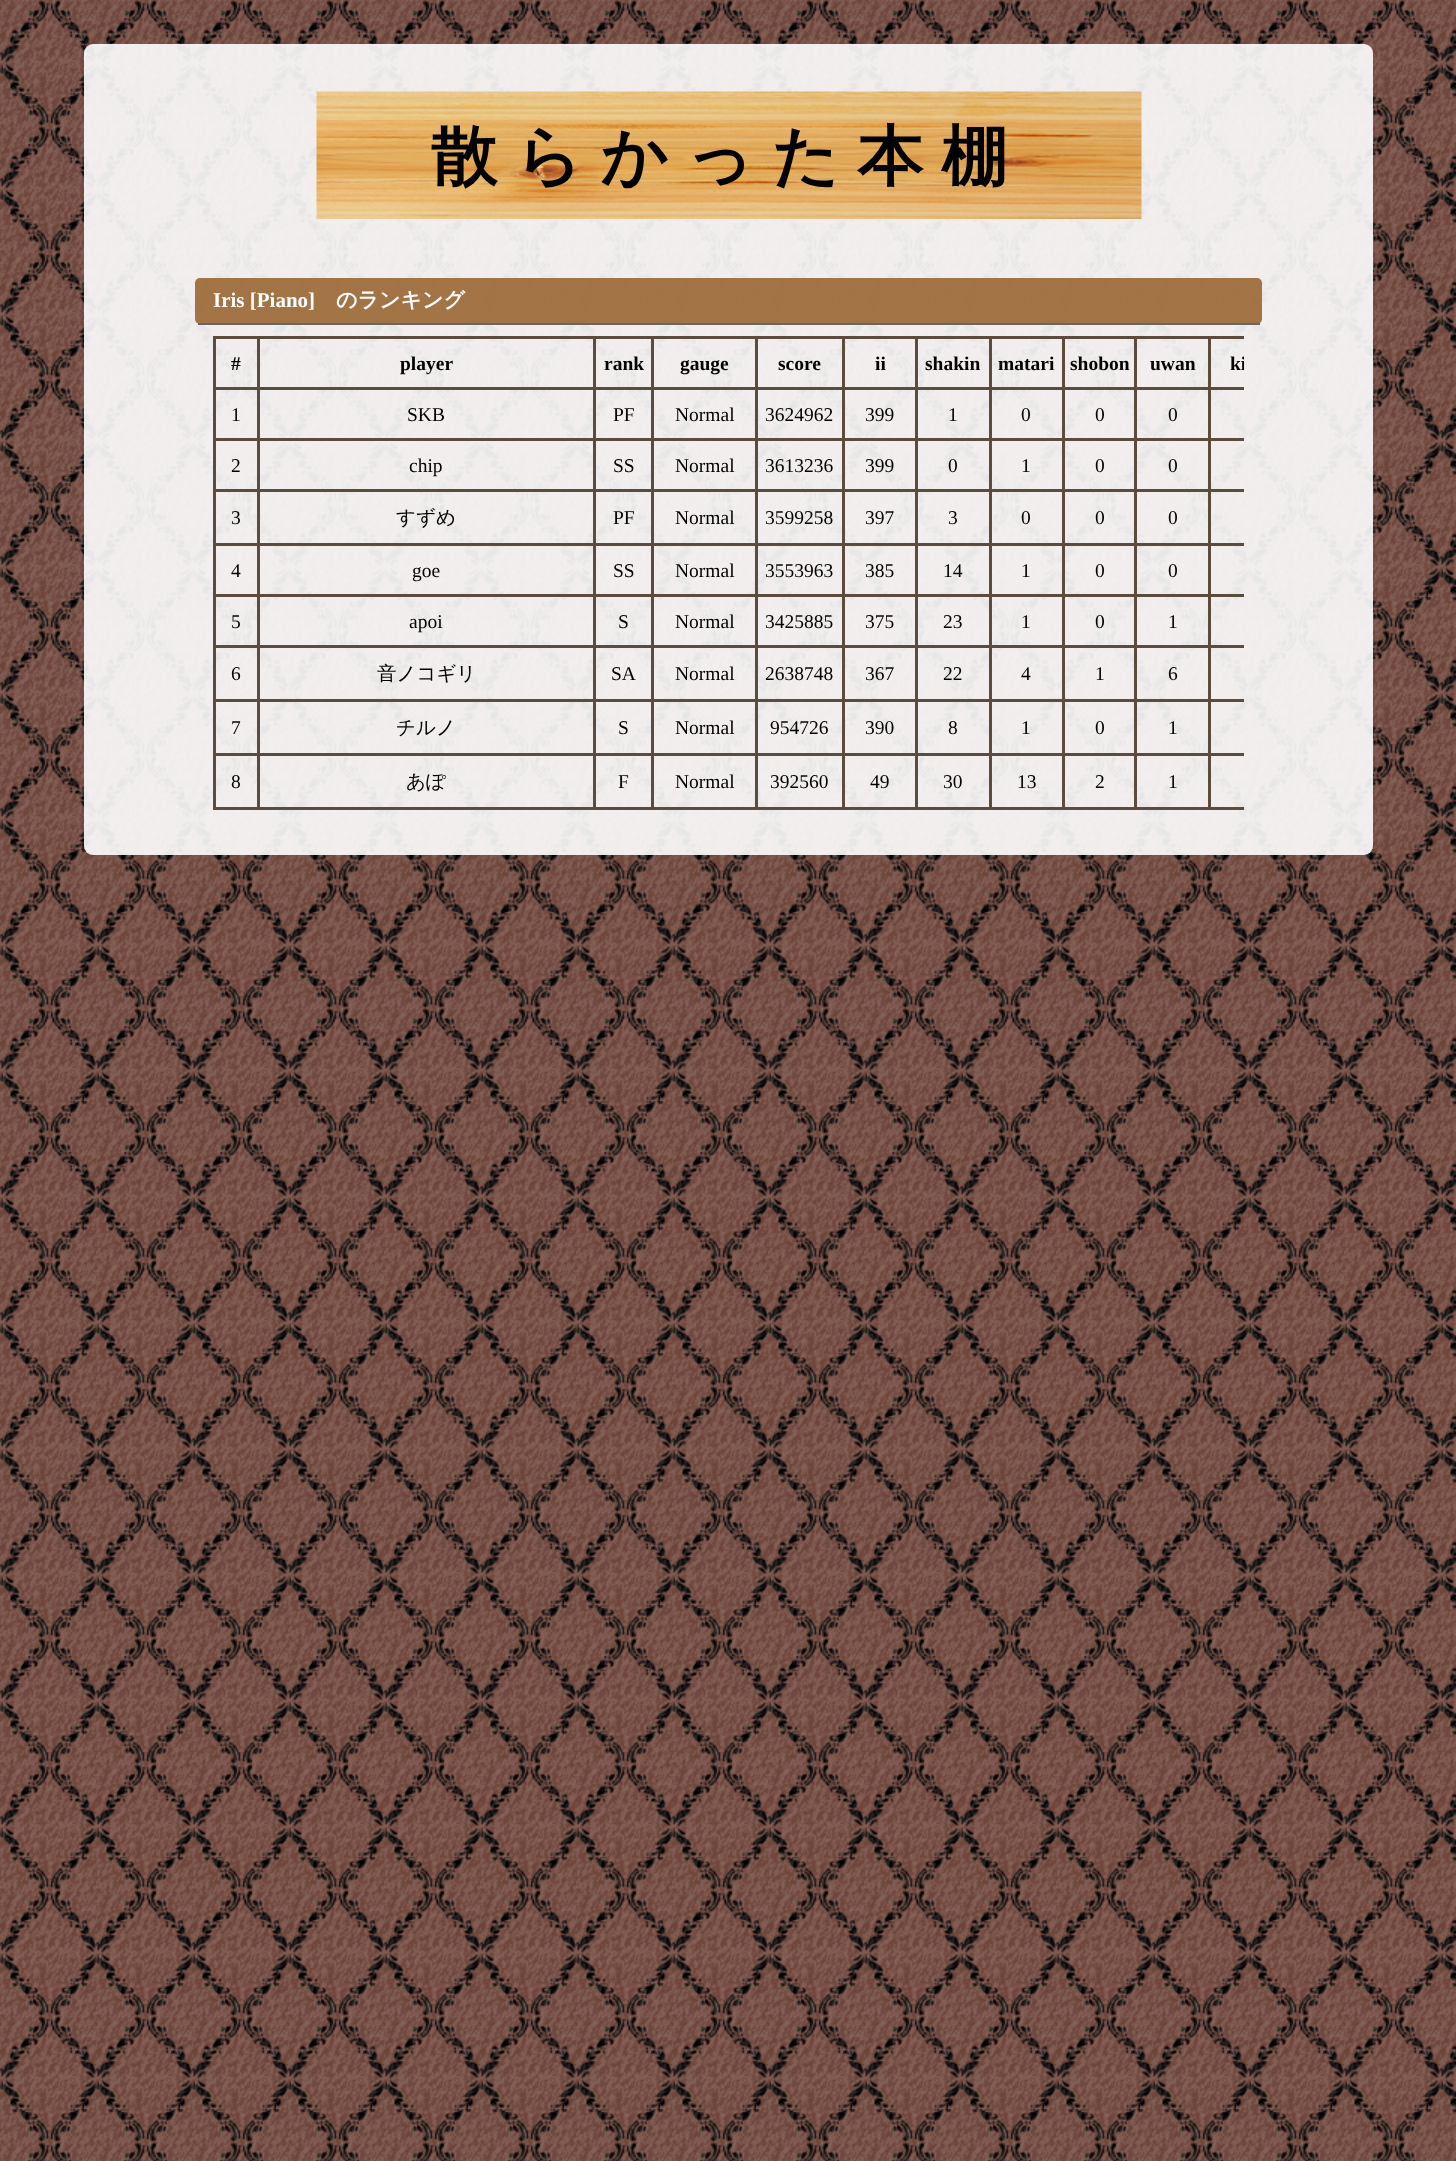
<?xml version="1.0" encoding="UTF-8"?>
<svg xmlns="http://www.w3.org/2000/svg" xmlns:xlink="http://www.w3.org/1999/xlink" width="1456" height="2161">
  <defs>
    <clipPath id="clip1"><rect x="213" y="336" width="1031" height="474" /></clipPath>
  </defs>
  <rect width="100%" height="100%" fill="#ffffff" />
  <image x="0" y="0" width="1456" height="2161" xlink:href="image1.png" />
  <rect x="84" y="44" width="1289" height="811" rx="9" fill="#ffffff" fill-opacity="0.9" />
  <image x="316" y="91" width="826" height="128" xlink:href="image2.png" />
  <rect x="195" y="278" width="1067" height="46" rx="5" fill="#996633" fill-opacity="0.9" />
  <rect x="198" y="323" width="1062" height="2" fill="#666666" />
  <rect x="213" y="336" width="1031" height="3" fill="#5c4c3e" />
  <rect x="213" y="807" width="1031" height="3" fill="#5c4c3e" />
  <rect x="213" y="336" width="3" height="474" fill="#5c4c3e" />
  <rect x="1208" y="387" width="36" height="3" fill="#5c4c3e" />
  <rect x="1208" y="438" width="36" height="3" fill="#5c4c3e" />
  <rect x="1208" y="489" width="36" height="3" fill="#5c4c3e" />
  <rect x="1208" y="543" width="36" height="3" fill="#5c4c3e" />
  <rect x="1208" y="594" width="36" height="3" fill="#5c4c3e" />
  <rect x="1208" y="645" width="36" height="3" fill="#5c4c3e" />
  <rect x="1208" y="699" width="36" height="3" fill="#5c4c3e" />
  <rect x="1208" y="753" width="36" height="3" fill="#5c4c3e" />
  <rect x="1208" y="753" width="3" height="57" fill="#5c4c3e" />
  <rect x="1134" y="753" width="77" height="3" fill="#5c4c3e" />
  <rect x="1208" y="699" width="3" height="57" fill="#5c4c3e" />
  <rect x="1134" y="699" width="77" height="3" fill="#5c4c3e" />
  <rect x="1208" y="645" width="3" height="57" fill="#5c4c3e" />
  <rect x="1134" y="645" width="77" height="3" fill="#5c4c3e" />
  <rect x="1208" y="594" width="3" height="54" fill="#5c4c3e" />
  <rect x="1134" y="594" width="77" height="3" fill="#5c4c3e" />
  <rect x="1208" y="543" width="3" height="54" fill="#5c4c3e" />
  <rect x="1134" y="543" width="77" height="3" fill="#5c4c3e" />
  <rect x="1208" y="489" width="3" height="57" fill="#5c4c3e" />
  <rect x="1134" y="489" width="77" height="3" fill="#5c4c3e" />
  <rect x="1208" y="438" width="3" height="54" fill="#5c4c3e" />
  <rect x="1134" y="438" width="77" height="3" fill="#5c4c3e" />
  <rect x="1208" y="387" width="3" height="54" fill="#5c4c3e" />
  <rect x="1134" y="387" width="77" height="3" fill="#5c4c3e" />
  <rect x="1134" y="753" width="3" height="57" fill="#5c4c3e" />
  <rect x="1062" y="753" width="75" height="3" fill="#5c4c3e" />
  <rect x="1134" y="699" width="3" height="57" fill="#5c4c3e" />
  <rect x="1062" y="699" width="75" height="3" fill="#5c4c3e" />
  <rect x="1134" y="645" width="3" height="57" fill="#5c4c3e" />
  <rect x="1062" y="645" width="75" height="3" fill="#5c4c3e" />
  <rect x="1134" y="594" width="3" height="54" fill="#5c4c3e" />
  <rect x="1062" y="594" width="75" height="3" fill="#5c4c3e" />
  <rect x="1134" y="543" width="3" height="54" fill="#5c4c3e" />
  <rect x="1062" y="543" width="75" height="3" fill="#5c4c3e" />
  <rect x="1134" y="489" width="3" height="57" fill="#5c4c3e" />
  <rect x="1062" y="489" width="75" height="3" fill="#5c4c3e" />
  <rect x="1134" y="438" width="3" height="54" fill="#5c4c3e" />
  <rect x="1062" y="438" width="75" height="3" fill="#5c4c3e" />
  <rect x="1134" y="387" width="3" height="54" fill="#5c4c3e" />
  <rect x="1062" y="387" width="75" height="3" fill="#5c4c3e" />
  <rect x="1062" y="753" width="3" height="57" fill="#5c4c3e" />
  <rect x="989" y="753" width="76" height="3" fill="#5c4c3e" />
  <rect x="1062" y="699" width="3" height="57" fill="#5c4c3e" />
  <rect x="989" y="699" width="76" height="3" fill="#5c4c3e" />
  <rect x="1062" y="645" width="3" height="57" fill="#5c4c3e" />
  <rect x="989" y="645" width="76" height="3" fill="#5c4c3e" />
  <rect x="1062" y="594" width="3" height="54" fill="#5c4c3e" />
  <rect x="989" y="594" width="76" height="3" fill="#5c4c3e" />
  <rect x="1062" y="543" width="3" height="54" fill="#5c4c3e" />
  <rect x="989" y="543" width="76" height="3" fill="#5c4c3e" />
  <rect x="1062" y="489" width="3" height="57" fill="#5c4c3e" />
  <rect x="989" y="489" width="76" height="3" fill="#5c4c3e" />
  <rect x="1062" y="438" width="3" height="54" fill="#5c4c3e" />
  <rect x="989" y="438" width="76" height="3" fill="#5c4c3e" />
  <rect x="1062" y="387" width="3" height="54" fill="#5c4c3e" />
  <rect x="989" y="387" width="76" height="3" fill="#5c4c3e" />
  <rect x="989" y="753" width="3" height="57" fill="#5c4c3e" />
  <rect x="915" y="753" width="77" height="3" fill="#5c4c3e" />
  <rect x="989" y="699" width="3" height="57" fill="#5c4c3e" />
  <rect x="915" y="699" width="77" height="3" fill="#5c4c3e" />
  <rect x="989" y="645" width="3" height="57" fill="#5c4c3e" />
  <rect x="915" y="645" width="77" height="3" fill="#5c4c3e" />
  <rect x="989" y="594" width="3" height="54" fill="#5c4c3e" />
  <rect x="915" y="594" width="77" height="3" fill="#5c4c3e" />
  <rect x="989" y="543" width="3" height="54" fill="#5c4c3e" />
  <rect x="915" y="543" width="77" height="3" fill="#5c4c3e" />
  <rect x="989" y="489" width="3" height="57" fill="#5c4c3e" />
  <rect x="915" y="489" width="77" height="3" fill="#5c4c3e" />
  <rect x="989" y="438" width="3" height="54" fill="#5c4c3e" />
  <rect x="915" y="438" width="77" height="3" fill="#5c4c3e" />
  <rect x="989" y="387" width="3" height="54" fill="#5c4c3e" />
  <rect x="915" y="387" width="77" height="3" fill="#5c4c3e" />
  <rect x="915" y="753" width="3" height="57" fill="#5c4c3e" />
  <rect x="842" y="753" width="76" height="3" fill="#5c4c3e" />
  <rect x="915" y="699" width="3" height="57" fill="#5c4c3e" />
  <rect x="842" y="699" width="76" height="3" fill="#5c4c3e" />
  <rect x="915" y="645" width="3" height="57" fill="#5c4c3e" />
  <rect x="842" y="645" width="76" height="3" fill="#5c4c3e" />
  <rect x="915" y="594" width="3" height="54" fill="#5c4c3e" />
  <rect x="842" y="594" width="76" height="3" fill="#5c4c3e" />
  <rect x="915" y="543" width="3" height="54" fill="#5c4c3e" />
  <rect x="842" y="543" width="76" height="3" fill="#5c4c3e" />
  <rect x="915" y="489" width="3" height="57" fill="#5c4c3e" />
  <rect x="842" y="489" width="76" height="3" fill="#5c4c3e" />
  <rect x="915" y="438" width="3" height="54" fill="#5c4c3e" />
  <rect x="842" y="438" width="76" height="3" fill="#5c4c3e" />
  <rect x="915" y="387" width="3" height="54" fill="#5c4c3e" />
  <rect x="842" y="387" width="76" height="3" fill="#5c4c3e" />
  <rect x="842" y="753" width="3" height="57" fill="#5c4c3e" />
  <rect x="755" y="753" width="90" height="3" fill="#5c4c3e" />
  <rect x="842" y="699" width="3" height="57" fill="#5c4c3e" />
  <rect x="755" y="699" width="90" height="3" fill="#5c4c3e" />
  <rect x="842" y="645" width="3" height="57" fill="#5c4c3e" />
  <rect x="755" y="645" width="90" height="3" fill="#5c4c3e" />
  <rect x="842" y="594" width="3" height="54" fill="#5c4c3e" />
  <rect x="755" y="594" width="90" height="3" fill="#5c4c3e" />
  <rect x="842" y="543" width="3" height="54" fill="#5c4c3e" />
  <rect x="755" y="543" width="90" height="3" fill="#5c4c3e" />
  <rect x="842" y="489" width="3" height="57" fill="#5c4c3e" />
  <rect x="755" y="489" width="90" height="3" fill="#5c4c3e" />
  <rect x="842" y="438" width="3" height="54" fill="#5c4c3e" />
  <rect x="755" y="438" width="90" height="3" fill="#5c4c3e" />
  <rect x="842" y="387" width="3" height="54" fill="#5c4c3e" />
  <rect x="755" y="387" width="90" height="3" fill="#5c4c3e" />
  <rect x="755" y="753" width="3" height="57" fill="#5c4c3e" />
  <rect x="651" y="753" width="107" height="3" fill="#5c4c3e" />
  <rect x="755" y="699" width="3" height="57" fill="#5c4c3e" />
  <rect x="651" y="699" width="107" height="3" fill="#5c4c3e" />
  <rect x="755" y="645" width="3" height="57" fill="#5c4c3e" />
  <rect x="651" y="645" width="107" height="3" fill="#5c4c3e" />
  <rect x="755" y="594" width="3" height="54" fill="#5c4c3e" />
  <rect x="651" y="594" width="107" height="3" fill="#5c4c3e" />
  <rect x="755" y="543" width="3" height="54" fill="#5c4c3e" />
  <rect x="651" y="543" width="107" height="3" fill="#5c4c3e" />
  <rect x="755" y="489" width="3" height="57" fill="#5c4c3e" />
  <rect x="651" y="489" width="107" height="3" fill="#5c4c3e" />
  <rect x="755" y="438" width="3" height="54" fill="#5c4c3e" />
  <rect x="651" y="438" width="107" height="3" fill="#5c4c3e" />
  <rect x="755" y="387" width="3" height="54" fill="#5c4c3e" />
  <rect x="651" y="387" width="107" height="3" fill="#5c4c3e" />
  <rect x="651" y="753" width="3" height="57" fill="#5c4c3e" />
  <rect x="593" y="753" width="61" height="3" fill="#5c4c3e" />
  <rect x="651" y="699" width="3" height="57" fill="#5c4c3e" />
  <rect x="593" y="699" width="61" height="3" fill="#5c4c3e" />
  <rect x="651" y="645" width="3" height="57" fill="#5c4c3e" />
  <rect x="593" y="645" width="61" height="3" fill="#5c4c3e" />
  <rect x="651" y="594" width="3" height="54" fill="#5c4c3e" />
  <rect x="593" y="594" width="61" height="3" fill="#5c4c3e" />
  <rect x="651" y="543" width="3" height="54" fill="#5c4c3e" />
  <rect x="593" y="543" width="61" height="3" fill="#5c4c3e" />
  <rect x="651" y="489" width="3" height="57" fill="#5c4c3e" />
  <rect x="593" y="489" width="61" height="3" fill="#5c4c3e" />
  <rect x="651" y="438" width="3" height="54" fill="#5c4c3e" />
  <rect x="593" y="438" width="61" height="3" fill="#5c4c3e" />
  <rect x="651" y="387" width="3" height="54" fill="#5c4c3e" />
  <rect x="593" y="387" width="61" height="3" fill="#5c4c3e" />
  <rect x="593" y="753" width="3" height="57" fill="#5c4c3e" />
  <rect x="257" y="753" width="339" height="3" fill="#5c4c3e" />
  <rect x="593" y="699" width="3" height="57" fill="#5c4c3e" />
  <rect x="257" y="699" width="339" height="3" fill="#5c4c3e" />
  <rect x="593" y="645" width="3" height="57" fill="#5c4c3e" />
  <rect x="257" y="645" width="339" height="3" fill="#5c4c3e" />
  <rect x="593" y="594" width="3" height="54" fill="#5c4c3e" />
  <rect x="257" y="594" width="339" height="3" fill="#5c4c3e" />
  <rect x="593" y="543" width="3" height="54" fill="#5c4c3e" />
  <rect x="257" y="543" width="339" height="3" fill="#5c4c3e" />
  <rect x="593" y="489" width="3" height="57" fill="#5c4c3e" />
  <rect x="257" y="489" width="339" height="3" fill="#5c4c3e" />
  <rect x="593" y="438" width="3" height="54" fill="#5c4c3e" />
  <rect x="257" y="438" width="339" height="3" fill="#5c4c3e" />
  <rect x="593" y="387" width="3" height="54" fill="#5c4c3e" />
  <rect x="257" y="387" width="339" height="3" fill="#5c4c3e" />
  <rect x="257" y="753" width="3" height="57" fill="#5c4c3e" />
  <rect x="213" y="753" width="47" height="3" fill="#5c4c3e" />
  <rect x="257" y="699" width="3" height="57" fill="#5c4c3e" />
  <rect x="213" y="699" width="47" height="3" fill="#5c4c3e" />
  <rect x="257" y="645" width="3" height="57" fill="#5c4c3e" />
  <rect x="213" y="645" width="47" height="3" fill="#5c4c3e" />
  <rect x="257" y="594" width="3" height="54" fill="#5c4c3e" />
  <rect x="213" y="594" width="47" height="3" fill="#5c4c3e" />
  <rect x="257" y="543" width="3" height="54" fill="#5c4c3e" />
  <rect x="213" y="543" width="47" height="3" fill="#5c4c3e" />
  <rect x="257" y="489" width="3" height="57" fill="#5c4c3e" />
  <rect x="213" y="489" width="47" height="3" fill="#5c4c3e" />
  <rect x="257" y="438" width="3" height="54" fill="#5c4c3e" />
  <rect x="213" y="438" width="47" height="3" fill="#5c4c3e" />
  <rect x="257" y="387" width="3" height="54" fill="#5c4c3e" />
  <rect x="213" y="387" width="47" height="3" fill="#5c4c3e" />
  <rect x="257" y="336" width="3" height="54" fill="#5c4c3e" />
  <rect x="593" y="336" width="3" height="54" fill="#5c4c3e" />
  <rect x="651" y="336" width="3" height="54" fill="#5c4c3e" />
  <rect x="755" y="336" width="3" height="54" fill="#5c4c3e" />
  <rect x="842" y="336" width="3" height="54" fill="#5c4c3e" />
  <rect x="915" y="336" width="3" height="54" fill="#5c4c3e" />
  <rect x="989" y="336" width="3" height="54" fill="#5c4c3e" />
  <rect x="1062" y="336" width="3" height="54" fill="#5c4c3e" />
  <rect x="1134" y="336" width="3" height="54" fill="#5c4c3e" />
  <rect x="1208" y="336" width="3" height="54" fill="#5c4c3e" />
  <text x="431" y="179" style="font-family: WenQuanYi Zen Hei; font-size: 66px; font-weight: bold; letter-spacing: 18px; fill: #000000">散らかった本棚</text>
  <text x="213" y="307" style="font-family: Liberation Serif; font-size: 21px; font-weight: bold; fill: #ffffff">Iris [Piano]</text>
  <text x="336" y="307" style="font-family: WenQuanYi Zen Hei; font-size: 21px; font-weight: bold; fill: #ffffff">のランキング</text>
  <text x="231" y="370" style="font-family: Liberation Serif; font-size: 19.5px; font-weight: bold; fill: #000000">#</text>
  <text x="400" y="370" style="font-family: Liberation Serif; font-size: 19.5px; font-weight: bold; fill: #000000">player</text>
  <text x="604" y="370" style="font-family: Liberation Serif; font-size: 19.5px; font-weight: bold; fill: #000000">rank</text>
  <text x="680" y="370" style="font-family: Liberation Serif; font-size: 19.5px; font-weight: bold; fill: #000000">gauge</text>
  <text x="778" y="370" style="font-family: Liberation Serif; font-size: 19.5px; font-weight: bold; fill: #000000">score</text>
  <text x="875" y="370" style="font-family: Liberation Serif; font-size: 19.5px; font-weight: bold; fill: #000000">ii</text>
  <text x="925" y="370" style="font-family: Liberation Serif; font-size: 19.5px; font-weight: bold; fill: #000000">shakin</text>
  <text x="998" y="370" style="font-family: Liberation Serif; font-size: 19.5px; font-weight: bold; fill: #000000">matari</text>
  <text x="1070" y="370" style="font-family: Liberation Serif; font-size: 19.5px; font-weight: bold; fill: #000000">shobon</text>
  <text x="1150" y="370" style="font-family: Liberation Serif; font-size: 19.5px; font-weight: bold; fill: #000000">uwan</text>
  <g clip-path="url(#clip1)">
    <text x="1230" y="370" style="font-family: Liberation Serif; font-size: 19.5px; font-weight: bold; fill: #000000">ki</text>
  </g>
  <text x="231" y="421" style="font-family: Liberation Serif; font-size: 19.5px; fill: #000000">1</text>
  <text x="407" y="421" style="font-family: Liberation Serif; font-size: 19.5px; fill: #000000">SKB</text>
  <text x="613" y="421" style="font-family: Liberation Serif; font-size: 19.5px; fill: #000000">PF</text>
  <text x="675" y="421" style="font-family: Liberation Serif; font-size: 19.5px; fill: #000000">Normal</text>
  <text x="765" y="421" style="font-family: Liberation Serif; font-size: 19.5px; fill: #000000">3624962</text>
  <text x="865" y="421" style="font-family: Liberation Serif; font-size: 19.5px; fill: #000000">399</text>
  <text x="948" y="421" style="font-family: Liberation Serif; font-size: 19.5px; fill: #000000">1</text>
  <text x="1021" y="421" style="font-family: Liberation Serif; font-size: 19.5px; fill: #000000">0</text>
  <text x="1095" y="421" style="font-family: Liberation Serif; font-size: 19.5px; fill: #000000">0</text>
  <text x="1168" y="421" style="font-family: Liberation Serif; font-size: 19.5px; fill: #000000">0</text>
  <text x="231" y="472" style="font-family: Liberation Serif; font-size: 19.5px; fill: #000000">2</text>
  <text x="409" y="472" style="font-family: Liberation Serif; font-size: 19.5px; fill: #000000">chip</text>
  <text x="613" y="472" style="font-family: Liberation Serif; font-size: 19.5px; fill: #000000">SS</text>
  <text x="675" y="472" style="font-family: Liberation Serif; font-size: 19.5px; fill: #000000">Normal</text>
  <text x="765" y="472" style="font-family: Liberation Serif; font-size: 19.5px; fill: #000000">3613236</text>
  <text x="865" y="472" style="font-family: Liberation Serif; font-size: 19.5px; fill: #000000">399</text>
  <text x="948" y="472" style="font-family: Liberation Serif; font-size: 19.5px; fill: #000000">0</text>
  <text x="1021" y="472" style="font-family: Liberation Serif; font-size: 19.5px; fill: #000000">1</text>
  <text x="1095" y="472" style="font-family: Liberation Serif; font-size: 19.5px; fill: #000000">0</text>
  <text x="1168" y="472" style="font-family: Liberation Serif; font-size: 19.5px; fill: #000000">0</text>
  <text x="231" y="524" style="font-family: Liberation Serif; font-size: 19.5px; fill: #000000">3</text>
  <text x="396" y="524" style="font-family: WenQuanYi Zen Hei; font-size: 19.5px; font-weight: 500; fill: #000000">すずめ</text>
  <text x="613" y="524" style="font-family: Liberation Serif; font-size: 19.5px; fill: #000000">PF</text>
  <text x="675" y="524" style="font-family: Liberation Serif; font-size: 19.5px; fill: #000000">Normal</text>
  <text x="765" y="524" style="font-family: Liberation Serif; font-size: 19.5px; fill: #000000">3599258</text>
  <text x="865" y="524" style="font-family: Liberation Serif; font-size: 19.5px; fill: #000000">397</text>
  <text x="948" y="524" style="font-family: Liberation Serif; font-size: 19.5px; fill: #000000">3</text>
  <text x="1021" y="524" style="font-family: Liberation Serif; font-size: 19.5px; fill: #000000">0</text>
  <text x="1095" y="524" style="font-family: Liberation Serif; font-size: 19.5px; fill: #000000">0</text>
  <text x="1168" y="524" style="font-family: Liberation Serif; font-size: 19.5px; fill: #000000">0</text>
  <text x="231" y="577" style="font-family: Liberation Serif; font-size: 19.5px; fill: #000000">4</text>
  <text x="412" y="577" style="font-family: Liberation Serif; font-size: 19.5px; fill: #000000">goe</text>
  <text x="613" y="577" style="font-family: Liberation Serif; font-size: 19.5px; fill: #000000">SS</text>
  <text x="675" y="577" style="font-family: Liberation Serif; font-size: 19.5px; fill: #000000">Normal</text>
  <text x="765" y="577" style="font-family: Liberation Serif; font-size: 19.5px; fill: #000000">3553963</text>
  <text x="865" y="577" style="font-family: Liberation Serif; font-size: 19.5px; fill: #000000">385</text>
  <text x="943" y="577" style="font-family: Liberation Serif; font-size: 19.5px; fill: #000000">14</text>
  <text x="1021" y="577" style="font-family: Liberation Serif; font-size: 19.5px; fill: #000000">1</text>
  <text x="1095" y="577" style="font-family: Liberation Serif; font-size: 19.5px; fill: #000000">0</text>
  <text x="1168" y="577" style="font-family: Liberation Serif; font-size: 19.5px; fill: #000000">0</text>
  <text x="231" y="628" style="font-family: Liberation Serif; font-size: 19.5px; fill: #000000">5</text>
  <text x="409" y="628" style="font-family: Liberation Serif; font-size: 19.5px; fill: #000000">apoi</text>
  <text x="618" y="628" style="font-family: Liberation Serif; font-size: 19.5px; fill: #000000">S</text>
  <text x="675" y="628" style="font-family: Liberation Serif; font-size: 19.5px; fill: #000000">Normal</text>
  <text x="765" y="628" style="font-family: Liberation Serif; font-size: 19.5px; fill: #000000">3425885</text>
  <text x="865" y="628" style="font-family: Liberation Serif; font-size: 19.5px; fill: #000000">375</text>
  <text x="943" y="628" style="font-family: Liberation Serif; font-size: 19.5px; fill: #000000">23</text>
  <text x="1021" y="628" style="font-family: Liberation Serif; font-size: 19.5px; fill: #000000">1</text>
  <text x="1095" y="628" style="font-family: Liberation Serif; font-size: 19.5px; fill: #000000">0</text>
  <text x="1168" y="628" style="font-family: Liberation Serif; font-size: 19.5px; fill: #000000">1</text>
  <text x="231" y="680" style="font-family: Liberation Serif; font-size: 19.5px; fill: #000000">6</text>
  <text x="377" y="680" style="font-family: WenQuanYi Zen Hei; font-size: 19.5px; font-weight: 500; fill: #000000">音ノコギリ</text>
  <text x="611" y="680" style="font-family: Liberation Serif; font-size: 19.5px; fill: #000000">SA</text>
  <text x="675" y="680" style="font-family: Liberation Serif; font-size: 19.5px; fill: #000000">Normal</text>
  <text x="765" y="680" style="font-family: Liberation Serif; font-size: 19.5px; fill: #000000">2638748</text>
  <text x="865" y="680" style="font-family: Liberation Serif; font-size: 19.5px; fill: #000000">367</text>
  <text x="943" y="680" style="font-family: Liberation Serif; font-size: 19.5px; fill: #000000">22</text>
  <text x="1021" y="680" style="font-family: Liberation Serif; font-size: 19.5px; fill: #000000">4</text>
  <text x="1095" y="680" style="font-family: Liberation Serif; font-size: 19.5px; fill: #000000">1</text>
  <text x="1168" y="680" style="font-family: Liberation Serif; font-size: 19.5px; fill: #000000">6</text>
  <text x="231" y="734" style="font-family: Liberation Serif; font-size: 19.5px; fill: #000000">7</text>
  <text x="396" y="734" style="font-family: WenQuanYi Zen Hei; font-size: 19.5px; font-weight: 500; fill: #000000">チルノ</text>
  <text x="618" y="734" style="font-family: Liberation Serif; font-size: 19.5px; fill: #000000">S</text>
  <text x="675" y="734" style="font-family: Liberation Serif; font-size: 19.5px; fill: #000000">Normal</text>
  <text x="770" y="734" style="font-family: Liberation Serif; font-size: 19.5px; fill: #000000">954726</text>
  <text x="865" y="734" style="font-family: Liberation Serif; font-size: 19.5px; fill: #000000">390</text>
  <text x="948" y="734" style="font-family: Liberation Serif; font-size: 19.5px; fill: #000000">8</text>
  <text x="1021" y="734" style="font-family: Liberation Serif; font-size: 19.5px; fill: #000000">1</text>
  <text x="1095" y="734" style="font-family: Liberation Serif; font-size: 19.5px; fill: #000000">0</text>
  <text x="1168" y="734" style="font-family: Liberation Serif; font-size: 19.5px; fill: #000000">1</text>
  <text x="231" y="788" style="font-family: Liberation Serif; font-size: 19.5px; fill: #000000">8</text>
  <text x="406" y="788" style="font-family: WenQuanYi Zen Hei; font-size: 19.5px; font-weight: 500; fill: #000000">あぽ</text>
  <text x="618" y="788" style="font-family: Liberation Serif; font-size: 19.5px; fill: #000000">F</text>
  <text x="675" y="788" style="font-family: Liberation Serif; font-size: 19.5px; fill: #000000">Normal</text>
  <text x="770" y="788" style="font-family: Liberation Serif; font-size: 19.5px; fill: #000000">392560</text>
  <text x="870" y="788" style="font-family: Liberation Serif; font-size: 19.5px; fill: #000000">49</text>
  <text x="943" y="788" style="font-family: Liberation Serif; font-size: 19.5px; fill: #000000">30</text>
  <text x="1017" y="788" style="font-family: Liberation Serif; font-size: 19.5px; fill: #000000">13</text>
  <text x="1095" y="788" style="font-family: Liberation Serif; font-size: 19.5px; fill: #000000">2</text>
  <text x="1168" y="788" style="font-family: Liberation Serif; font-size: 19.5px; fill: #000000">1</text>
</svg>
